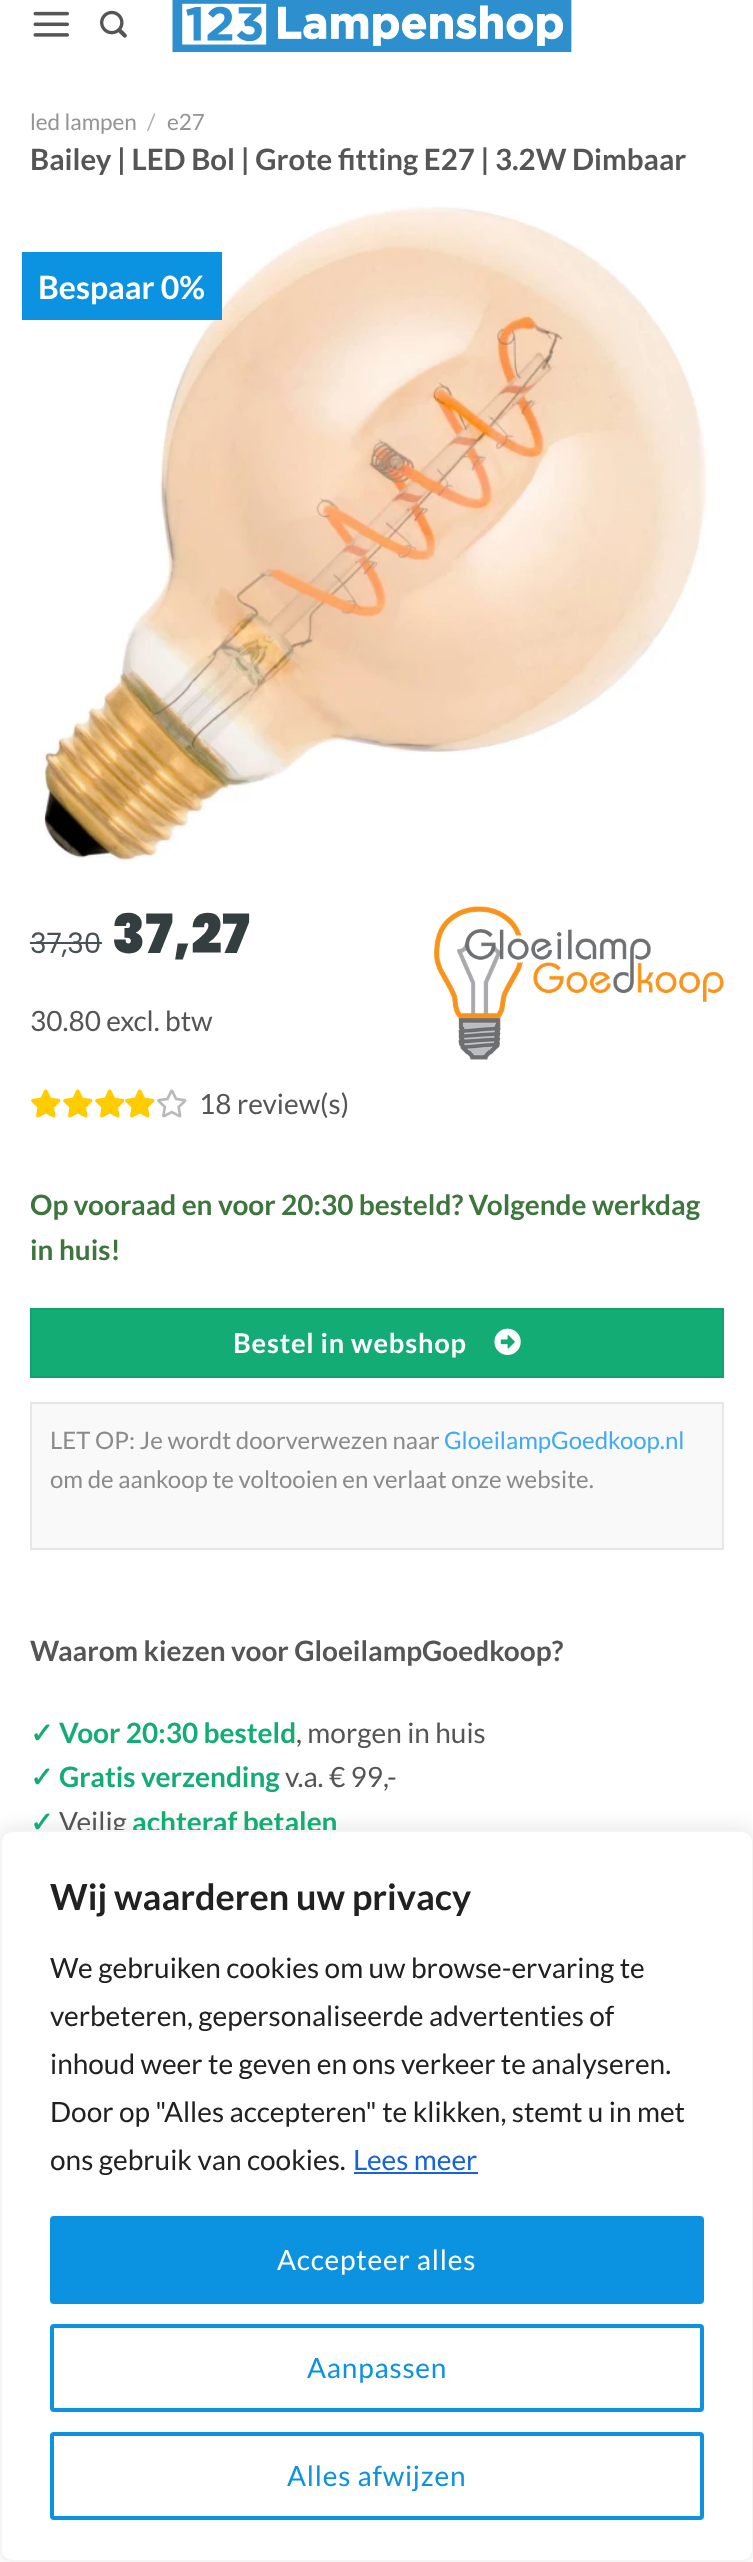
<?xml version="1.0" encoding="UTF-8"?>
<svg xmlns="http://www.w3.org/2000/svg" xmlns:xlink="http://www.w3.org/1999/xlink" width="753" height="2562">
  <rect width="100%" height="100%" fill="#ffffff" />
  <image x="33" y="11" width="36" height="26" xlink:href="image1.png" />
  <image x="100" y="10" width="27" height="28" xlink:href="image2.png" />
  <image x="172" y="0" width="400" height="53" xlink:href="image3.png" />
  <image x="43" y="206" width="664" height="657" xlink:href="image4.png" />
  <rect x="22" y="252" width="200" height="68" fill="#0b92e0" />
  <rect x="30" y="942" width="72" height="2" fill="#485153" />
  <image x="434" y="906" width="290" height="154" xlink:href="image5.png" />
  <image x="31" y="1089" width="30" height="29" xlink:href="image6.png" />
  <image x="63" y="1089" width="30" height="29" xlink:href="image6.png" />
  <image x="95" y="1089" width="30" height="29" xlink:href="image6.png" />
  <image x="125" y="1089" width="30" height="29" xlink:href="image6.png" />
  <image x="157" y="1089" width="30" height="29" xlink:href="image7.png" />
  <rect x="31" y="1309" width="692" height="68" fill="#12ac74" stroke="#11a36e" stroke-width="2" />
  <image x="494" y="1328" width="27" height="27" xlink:href="image8.png" />
  <rect x="32" y="1404" width="690" height="144" fill="#f9f9f9" />
  <rect x="31" y="1403" width="692" height="146" fill="none" stroke="#e7e7e7" stroke-width="2" />
  <rect y="1828" width="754" height="732" rx="12" fill="#acabab" fill-opacity="0.3" filter="blur(10px)" />
  <text x="30" y="130" style="font-family: Lato; font-size: 22.5px; fill: #949494">led lampen</text>
  <text x="147" y="130" style="font-family: Lato; font-size: 22.5px; fill: #b2b2b2">/</text>
  <text x="167" y="130" style="font-family: Lato; font-size: 22.5px; fill: #949494">e27</text>
  <text x="30" y="170" style="font-family: Lato; font-size: 29.4px; font-weight: bold; fill: #555555">Bailey | LED Bol | Grote fitting E27 | 3.2W Dimbaar</text>
  <text x="38" y="299" style="font-family: Lato; font-size: 32px; font-weight: bold; fill: #ffffff">Bespaar 0%</text>
  <text x="30" y="953" style="font-family: Poppins; font-size: 28px; fill: #485153">37,30</text>
  <text x="112" y="953" style="font-family: Poppins; font-size: 54px; font-weight: 900; fill: #343e40">37,27</text>
  <text x="30" y="1031" style="font-family: Lato; font-size: 28px; fill: #555555">30.80 excl. btw</text>
  <text x="199" y="1114" style="font-family: Lato; font-size: 28px; fill: #555555">18 review(s)</text>
  <text x="30" y="1215" style="font-family: Lato; font-size: 28px; font-weight: bold; fill: #3c763d">Op vooraad en voor 20:30 besteld? Volgende werkdag</text>
  <text x="30" y="1260" style="font-family: Lato; font-size: 28px; font-weight: bold; fill: #3c763d">in huis!</text>
  <text x="233" y="1353" style="font-family: Lato; font-size: 27.25px; font-weight: bold; letter-spacing: 0.8px; fill: #ffffff">Bestel in webshop</text>
  <text x="50" y="1449" style="font-family: Lato; font-size: 24px; fill: #8b8b8b">LET OP: Je wordt doorverwezen naar</text>
  <text x="444" y="1449" style="font-family: Lato; font-size: 24px; fill: #3fa9f5">GloeilampGoedkoop.nl</text>
  <text x="50" y="1488" style="font-family: Lato; font-size: 24px; fill: #8b8b8b">om de aankoop te voltooien en verlaat onze website.</text>
  <text x="30" y="1661" style="font-family: Lato; font-size: 28px; font-weight: bold; fill: #555555">Waarom kiezen voor GloeilampGoedkoop?</text>
  <text x="30" y="1743" style="font-family: DejaVu Sans; font-size: 28px; font-weight: bold; fill: #12ac74">✓</text>
  <text x="59" y="1743" style="font-family: Lato; font-size: 28px; font-weight: bold; fill: #12ac74">Voor 20:30 besteld</text>
  <text x="296" y="1743" style="font-family: Lato; font-size: 28px; fill: #555555">, morgen in huis</text>
  <text x="30" y="1787" style="font-family: DejaVu Sans; font-size: 28px; font-weight: bold; fill: #12ac74">✓</text>
  <text x="59" y="1787" style="font-family: Lato; font-size: 28px; font-weight: bold; fill: #12ac74">Gratis verzending</text>
  <text x="285" y="1787" style="font-family: Lato; font-size: 28px; fill: #555555">v.a. € 99,-</text>
  <text x="30" y="1832" style="font-family: DejaVu Sans; font-size: 28px; font-weight: bold; fill: #12ac74">✓</text>
  <text x="59" y="1832" style="font-family: Lato; font-size: 28px; fill: #555555">Veilig</text>
  <text x="132" y="1832" style="font-family: Lato; font-size: 28px; font-weight: bold; fill: #12ac74">achteraf betalen</text>
  <rect x="1" y="1831" width="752" height="730" rx="11" fill="#ffffff" stroke="#f4f4f4" stroke-width="2" />
  <text x="50" y="1910" style="font-family: Lato; font-size: 36px; font-weight: bold; fill: #212121">Wij waarderen uw privacy</text>
  <text x="50" y="1978" style="font-family: Lato; font-size: 28px; fill: #212121">We gebruiken cookies om uw browse-ervaring te</text>
  <text x="50" y="2026" style="font-family: Lato; font-size: 28px; fill: #212121">verbeteren, gepersonaliseerde advertenties of</text>
  <text x="50" y="2074" style="font-family: Lato; font-size: 28px; fill: #212121">inhoud weer te geven en ons verkeer te analyseren.</text>
  <text x="50" y="2122" style="font-family: Lato; font-size: 28px; fill: #212121">Door op "Alles accepteren" te klikken, stemt u in met</text>
  <text x="50" y="2170" style="font-family: Lato; font-size: 28px; fill: #212121">ons gebruik van cookies.</text>
  <text x="353" y="2170" style="font-family: Lato; font-size: 28px; fill: #1863dc">Lees meer</text>
  <rect x="354" y="2172" width="124" height="2" fill="#1863dc" />
  <rect x="52" y="2218" width="650" height="84" rx="2" fill="#0b92e0" stroke="#0b92e0" stroke-width="4" />
  <text x="277" y="2270" style="font-family: Lato; font-size: 28px; letter-spacing: 0.8px; fill: #ffffff">Accepteer alles</text>
  <rect x="52" y="2326" width="650" height="84" rx="2" fill="none" stroke="#0b92e0" stroke-width="4" />
  <text x="307" y="2378" style="font-family: Lato; font-size: 28px; letter-spacing: 0.8px; fill: #0b92e0">Aanpassen</text>
  <rect x="52" y="2434" width="650" height="84" rx="2" fill="none" stroke="#0b92e0" stroke-width="4" />
  <text x="287" y="2486" style="font-family: Lato; font-size: 28px; letter-spacing: 0.8px; fill: #0b92e0">Alles afwijzen</text>
</svg>
